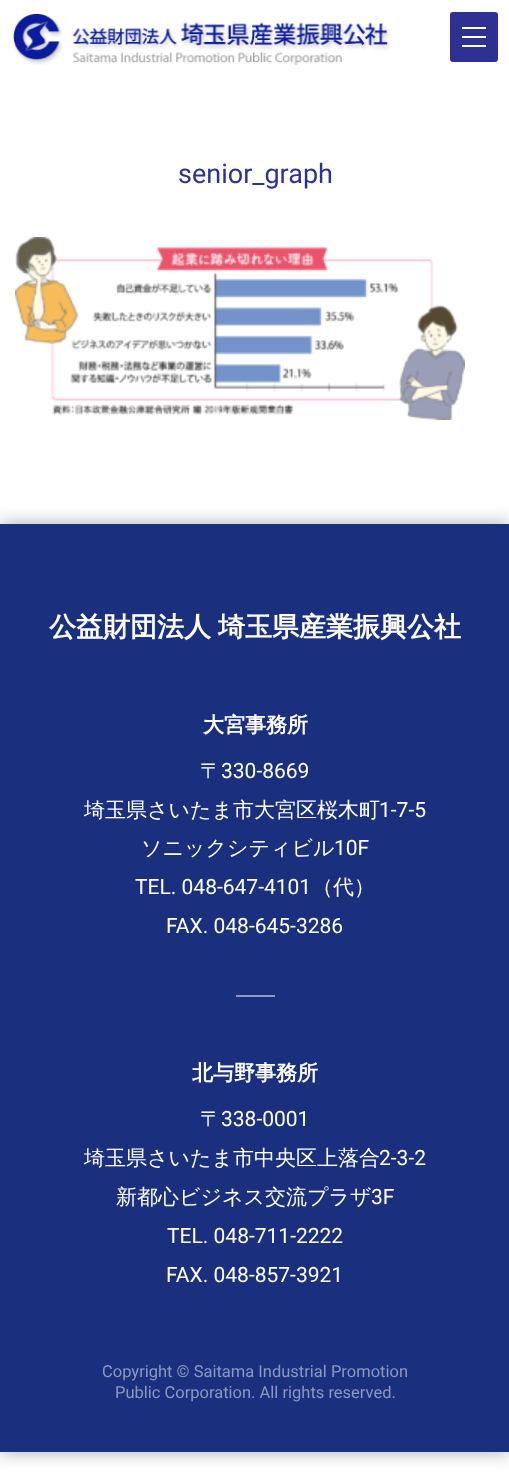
<?xml version="1.0" encoding="UTF-8"?>
<svg xmlns="http://www.w3.org/2000/svg" xmlns:xlink="http://www.w3.org/1999/xlink" width="509" height="1484">
  <rect width="100%" height="100%" fill="#ffffff" />
  <image x="13" y="14" width="377" height="51" xlink:href="image1.png" />
  <rect x="450" y="12" width="48" height="50" rx="3" fill="#2e3192" />
  <rect x="462" y="27" width="24" height="2" fill="#ffffff" />
  <rect x="462" y="36" width="24" height="2" fill="#ffffff" />
  <rect x="462" y="45" width="24" height="2" fill="#ffffff" />
  <image x="15" y="237" width="450" height="183" xlink:href="image2.png" />
  <rect y="524" width="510" height="928" fill="#000000" fill-opacity="0.33" filter="blur(9px)" />
  <rect y="524" width="509" height="928" fill="#1a307e" />
  <rect x="236" y="995" width="39" height="2" fill="#8d98bf" />
  <text x="178" y="183" style="font-family: Roboto; font-size: 27px; fill: #2e3192">senior_graph</text>
  <text x="49" y="636" word-spacing="-1" style="font-family: WenQuanYi Zen Hei; font-size: 27px; font-weight: bold; fill: #ffffff">公益財団法人 埼玉県産業振興公社</text>
  <text x="203" y="732" style="font-family: WenQuanYi Zen Hei; font-size: 21px; font-weight: bold; fill: #ffffff">大宮事務所</text>
  <text x="200" y="778" style="font-family: WenQuanYi Zen Hei; font-size: 21px; font-weight: 500; fill: #ffffff">〒</text>
  <text x="221" y="778" style="font-family: Roboto; font-size: 21px; fill: #ffffff">330-8669</text>
  <text x="84" y="817" style="font-family: WenQuanYi Zen Hei; font-size: 21px; font-weight: 500; fill: #ffffff">埼玉県さいたま市大宮区桜木町</text>
  <text x="379" y="817" style="font-family: Roboto; font-size: 21px; fill: #ffffff">1-7-5</text>
  <text x="141" y="855" style="font-family: WenQuanYi Zen Hei; font-size: 21px; font-weight: 500; fill: #ffffff">ソニックシティビル</text>
  <text x="334" y="855" style="font-family: Roboto; font-size: 21px; fill: #ffffff">10F</text>
  <text x="135" y="894" style="font-family: Roboto; font-size: 21px; fill: #ffffff">TEL. 048-647-4101</text>
  <text x="312" y="894" style="font-family: WenQuanYi Zen Hei; font-size: 21px; font-weight: 500; fill: #ffffff">（代）</text>
  <text x="166" y="933" style="font-family: Roboto; font-size: 21px; fill: #ffffff">FAX. 048-645-3286</text>
  <text x="192" y="1080" style="font-family: WenQuanYi Zen Hei; font-size: 21px; font-weight: bold; fill: #ffffff">北与野事務所</text>
  <text x="200" y="1126" style="font-family: WenQuanYi Zen Hei; font-size: 21px; font-weight: 500; fill: #ffffff">〒</text>
  <text x="221" y="1126" style="font-family: Roboto; font-size: 21px; fill: #ffffff">338-0001</text>
  <text x="84" y="1165" style="font-family: WenQuanYi Zen Hei; font-size: 21px; font-weight: 500; fill: #ffffff">埼玉県さいたま市中央区上落合</text>
  <text x="379" y="1165" style="font-family: Roboto; font-size: 21px; fill: #ffffff">2-3-2</text>
  <text x="116" y="1204" style="font-family: WenQuanYi Zen Hei; font-size: 21px; font-weight: 500; fill: #ffffff">新都心ビジネス交流プラザ</text>
  <text x="371" y="1204" style="font-family: Roboto; font-size: 21px; fill: #ffffff">3F</text>
  <text x="167" y="1243" style="font-family: Roboto; font-size: 21px; fill: #ffffff">TEL. 048-711-2222</text>
  <text x="166" y="1282" style="font-family: Roboto; font-size: 21px; fill: #ffffff">FAX. 048-857-3921</text>
  <text x="102" y="1377" style="font-family: Roboto; font-size: 16.5px; fill: #8d98bf">Copyright © Saitama Industrial Promotion</text>
  <text x="115" y="1398" style="font-family: Roboto; font-size: 16.5px; fill: #8d98bf">Public Corporation. All rights reserved.</text>
</svg>
